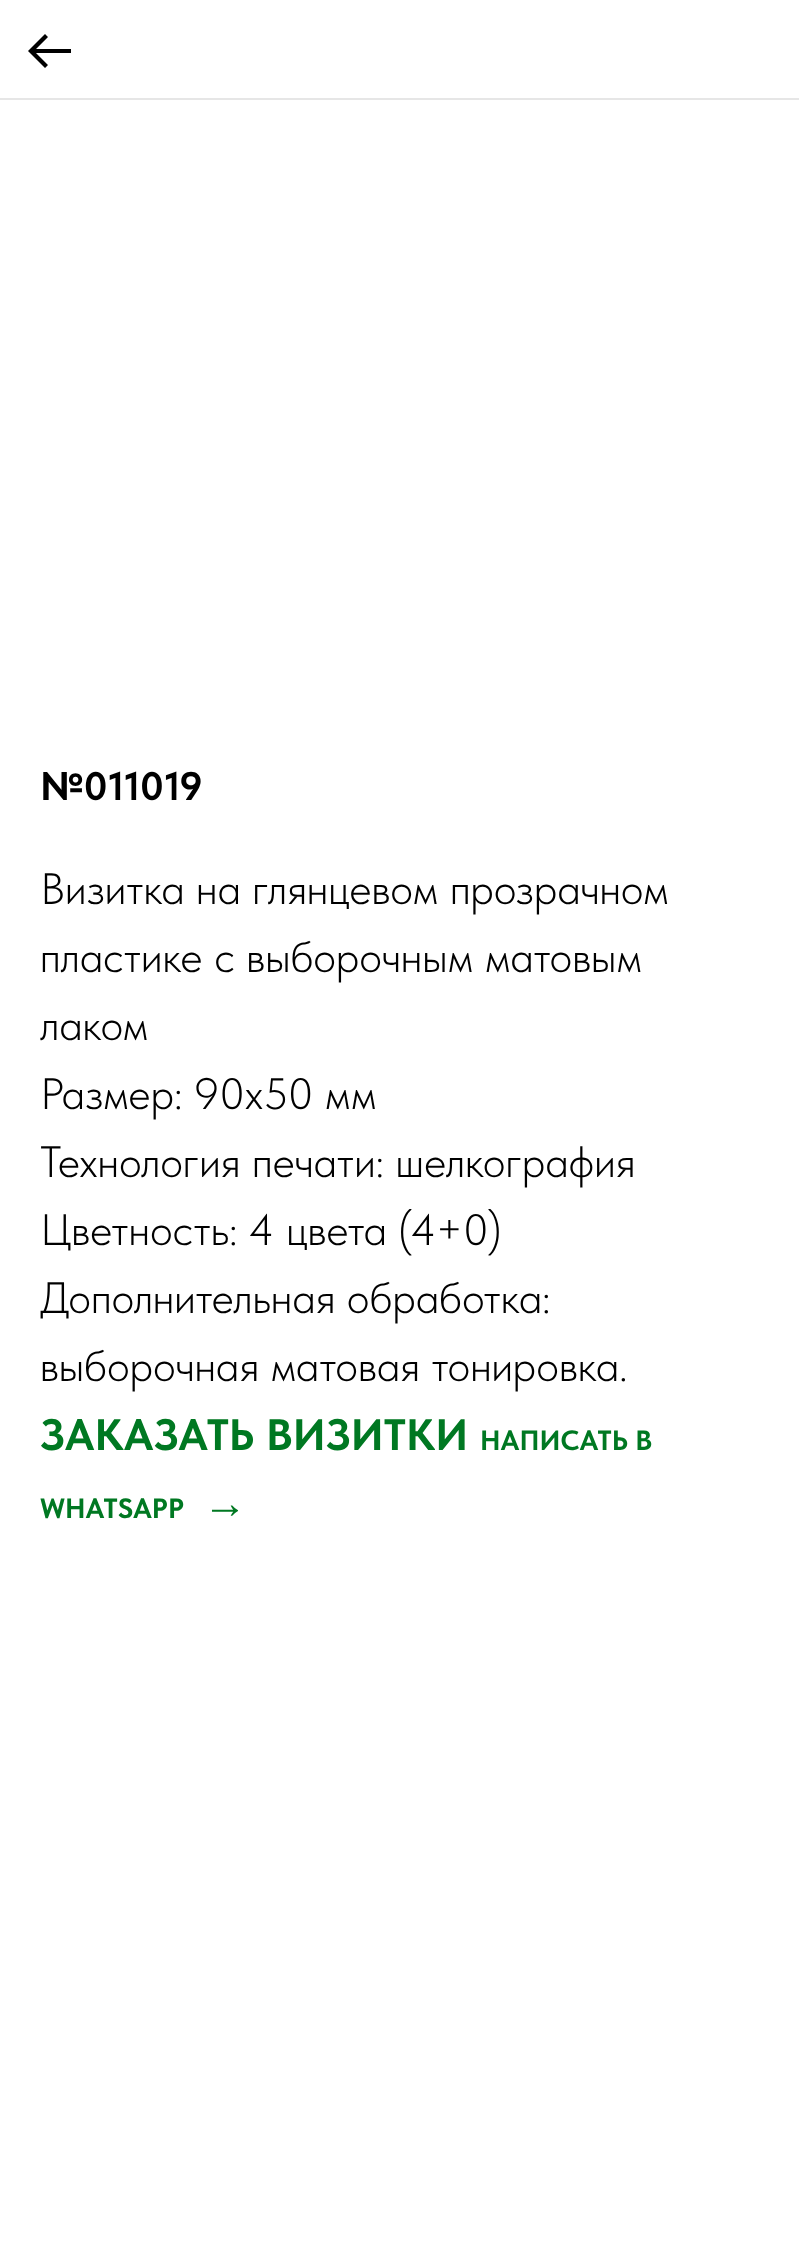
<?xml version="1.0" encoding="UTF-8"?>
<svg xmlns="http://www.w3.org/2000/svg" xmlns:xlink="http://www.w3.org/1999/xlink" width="799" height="2265">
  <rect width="100%" height="100%" fill="#ffffff" />
  <rect y="98" width="799" height="2" fill="#e6e6e6" />
  <path d="M 45 34 l 3 3 l -12 12 h 35 v 4 h -35 l 12 12 l -3 3 l -17 -17 z" fill="#000000" />
  <text x="40" y="800" style="font-family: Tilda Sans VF; font-size: 40px; font-weight: bold; fill: #000000">№011019</text>
  <text x="40" y="904" style="font-family: Tilda Sans VF; font-size: 44px; font-weight: 300; fill: #000000">Визитка на глянцевом прозрачном</text>
  <text x="40" y="972" style="font-family: Tilda Sans VF; font-size: 44px; font-weight: 300; fill: #000000">пластике с выборочным матовым</text>
  <text x="40" y="1040" style="font-family: Tilda Sans VF; font-size: 44px; font-weight: 300; fill: #000000">лаком</text>
  <text x="40" y="1109" style="font-family: Tilda Sans VF; font-size: 44px; font-weight: 300; fill: #000000">Размер: 90х50 мм</text>
  <text x="40" y="1177" style="font-family: Tilda Sans VF; font-size: 44px; font-weight: 300; fill: #000000">Технология печати: шелкография</text>
  <text x="40" y="1245" style="font-family: Tilda Sans VF; font-size: 44px; font-weight: 300; fill: #000000">Цветность: 4 цвета (4+0)</text>
  <text x="40" y="1313" style="font-family: Tilda Sans VF; font-size: 44px; font-weight: 300; fill: #000000">Дополнительная обработка:</text>
  <text x="40" y="1381" style="font-family: Tilda Sans VF; font-size: 44px; font-weight: 300; fill: #000000">выборочная матовая тонировка.</text>
  <text x="40" y="1450" style="font-family: Tilda Sans VF; font-size: 44px; font-weight: bold; fill: #007822">ЗАКАЗАТЬ ВИЗИТКИ</text>
  <text x="480" y="1450" style="font-family: Tilda Sans VF; font-size: 28px; font-weight: bold; fill: #007822">НАПИСАТЬ В</text>
  <text x="40" y="1518" style="font-family: Tilda Sans VF; font-size: 28px; font-weight: bold; fill: #007822">WHATSAPP</text>
  <text x="203" y="1518" style="font-family: Liberation Sans; font-size: 44px; font-weight: bold; fill: #007822">→</text>
</svg>
